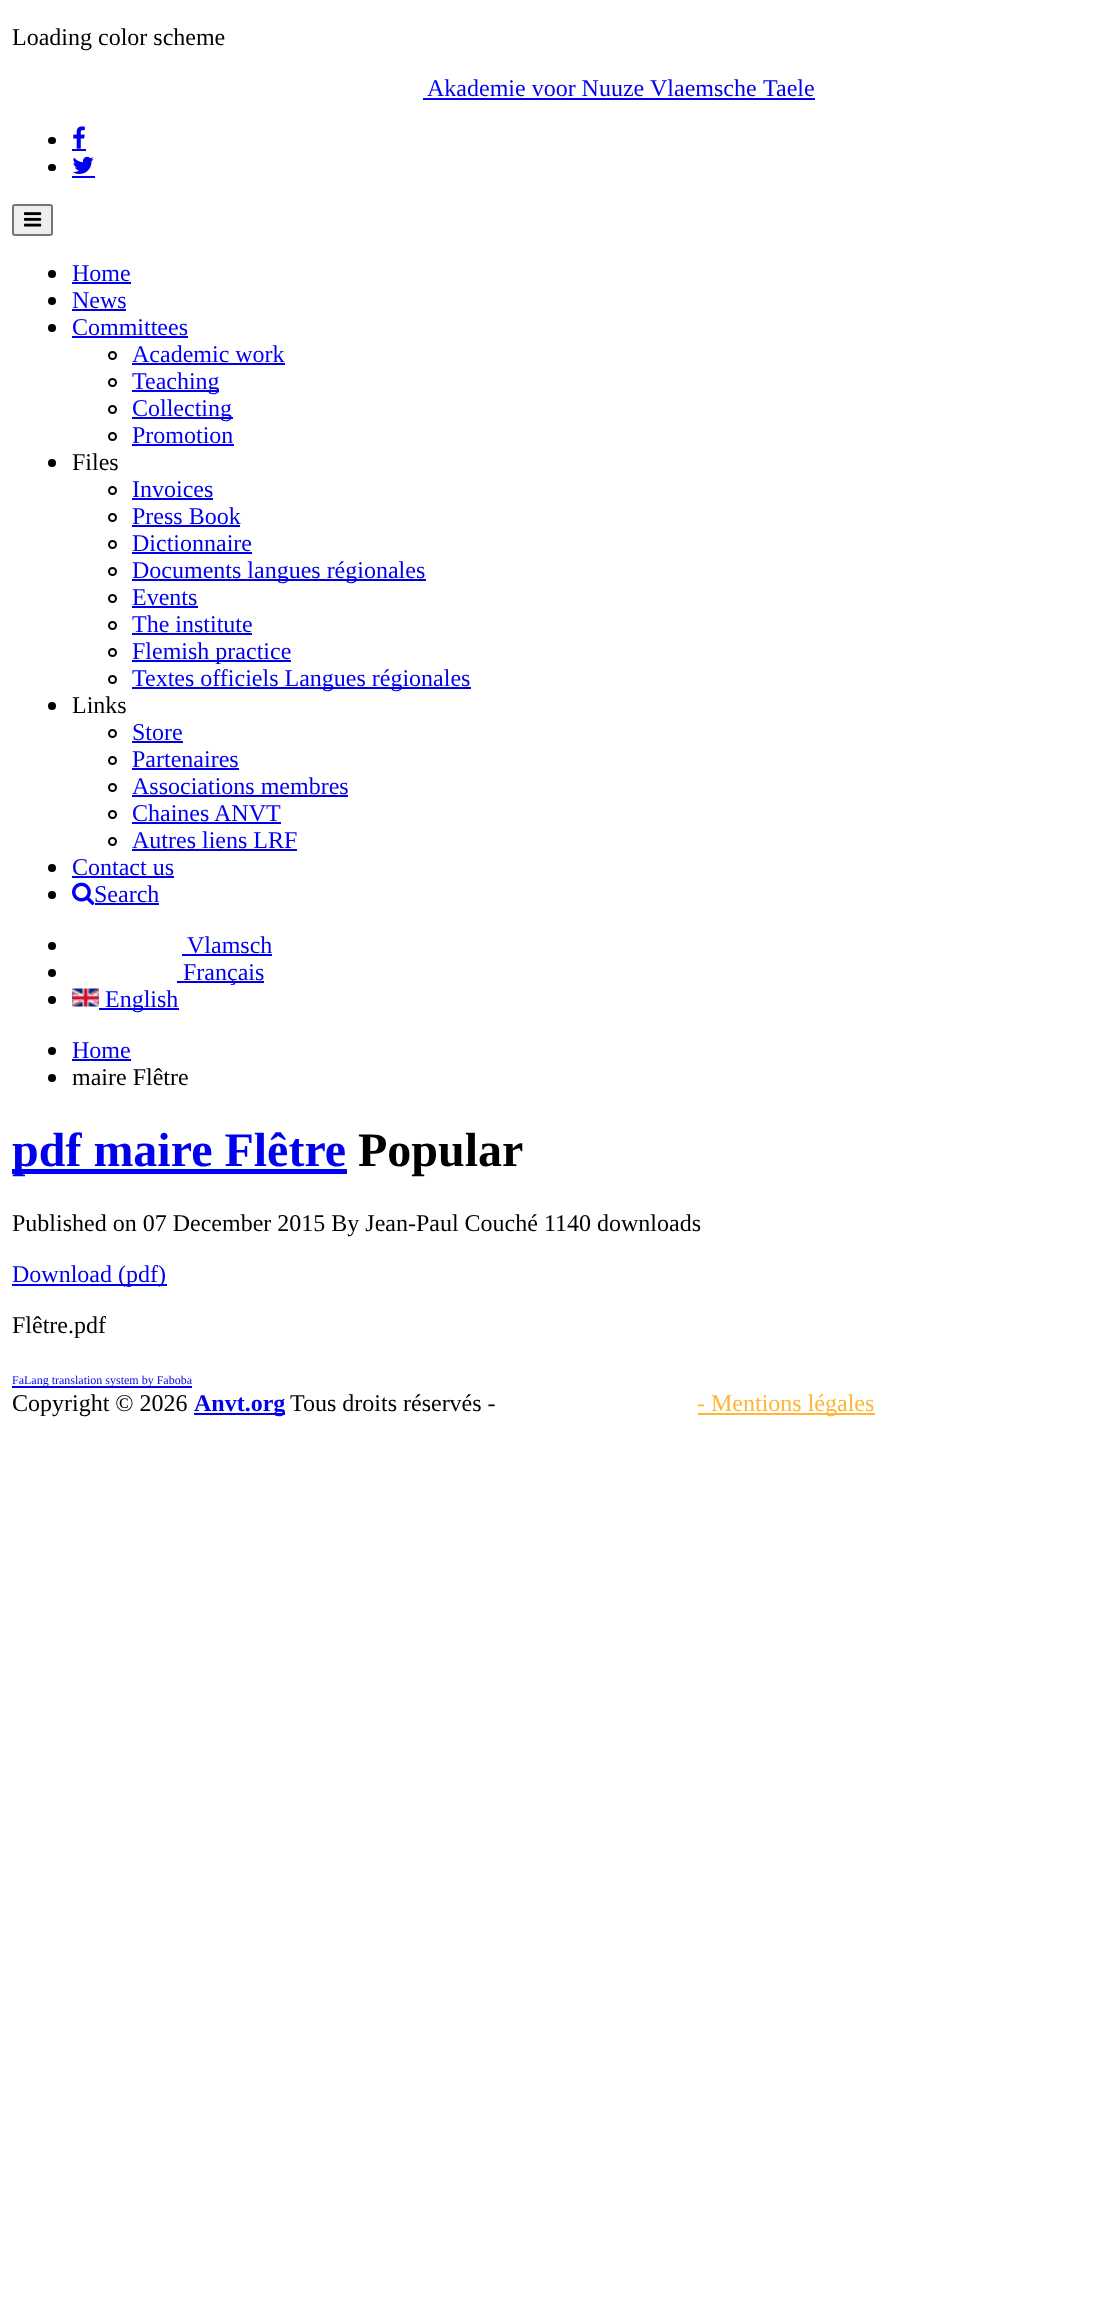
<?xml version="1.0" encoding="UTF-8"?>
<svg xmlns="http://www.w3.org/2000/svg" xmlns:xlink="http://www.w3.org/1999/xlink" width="1093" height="2307">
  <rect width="100%" height="100%" fill="#ffffff" />
  <rect x="423" y="98" width="392" height="2" fill="#0000ee" />
  <rect x="48" y="137" width="8" height="7" rx="3.5" fill="#000000" />
  <image x="73" y="126" width="12" height="23" xlink:href="image1.png" />
  <rect x="72" y="149" width="14" height="2" fill="#0000ee" />
  <rect x="48" y="164" width="8" height="7" rx="3.5" fill="#000000" />
  <image x="72" y="156" width="22" height="18" xlink:href="image2.png" />
  <rect x="72" y="176" width="23" height="2" fill="#0000ee" />
  <rect x="13" y="205" width="39" height="30" rx="2" fill="#efefef" stroke="#767676" stroke-width="2" />
  <image x="24" y="212" width="18" height="15" xlink:href="image3.png" />
  <circle cx="52" cy="274" r="4" fill="#000000" />
  <rect x="72" y="282" width="59" height="2" fill="#0000ee" />
  <circle cx="52" cy="301" r="4" fill="#000000" />
  <rect x="72" y="309" width="54" height="2" fill="#0000ee" />
  <circle cx="52" cy="328" r="4" fill="#000000" />
  <rect x="72" y="336" width="116" height="2" fill="#0000ee" />
  <circle cx="112.5" cy="355.5" r="3.5" fill="none" stroke="#000000" stroke-width="2" />
  <rect x="132" y="363" width="153" height="2" fill="#0000ee" />
  <circle cx="112.5" cy="382.5" r="3.5" fill="none" stroke="#000000" stroke-width="2" />
  <rect x="132" y="390" width="87" height="2" fill="#0000ee" />
  <circle cx="112.5" cy="409.5" r="3.5" fill="none" stroke="#000000" stroke-width="2" />
  <rect x="132" y="417" width="101" height="2" fill="#0000ee" />
  <circle cx="112.5" cy="436.5" r="3.5" fill="none" stroke="#000000" stroke-width="2" />
  <rect x="132" y="444" width="102" height="2" fill="#0000ee" />
  <circle cx="52" cy="463" r="4" fill="#000000" />
  <circle cx="112.5" cy="490.5" r="3.5" fill="none" stroke="#000000" stroke-width="2" />
  <rect x="132" y="498" width="81" height="2" fill="#0000ee" />
  <circle cx="112.5" cy="517.5" r="3.5" fill="none" stroke="#000000" stroke-width="2" />
  <rect x="132" y="525" width="108" height="2" fill="#0000ee" />
  <circle cx="112.5" cy="544.5" r="3.5" fill="none" stroke="#000000" stroke-width="2" />
  <rect x="132" y="552" width="120" height="2" fill="#0000ee" />
  <circle cx="112.5" cy="571.5" r="3.5" fill="none" stroke="#000000" stroke-width="2" />
  <rect x="132" y="579" width="294" height="2" fill="#0000ee" />
  <circle cx="112.5" cy="598.5" r="3.5" fill="none" stroke="#000000" stroke-width="2" />
  <rect x="132" y="606" width="66" height="2" fill="#0000ee" />
  <circle cx="112.5" cy="625.5" r="3.5" fill="none" stroke="#000000" stroke-width="2" />
  <rect x="132" y="633" width="120" height="2" fill="#0000ee" />
  <circle cx="112.5" cy="652.5" r="3.5" fill="none" stroke="#000000" stroke-width="2" />
  <rect x="132" y="660" width="159" height="2" fill="#0000ee" />
  <circle cx="112.5" cy="679.5" r="3.5" fill="none" stroke="#000000" stroke-width="2" />
  <rect x="132" y="687" width="339" height="2" fill="#0000ee" />
  <circle cx="52" cy="706" r="4" fill="#000000" />
  <circle cx="112.5" cy="733.5" r="3.5" fill="none" stroke="#000000" stroke-width="2" />
  <rect x="132" y="741" width="51" height="2" fill="#0000ee" />
  <circle cx="112.5" cy="760.5" r="3.5" fill="none" stroke="#000000" stroke-width="2" />
  <rect x="132" y="768" width="107" height="2" fill="#0000ee" />
  <circle cx="112.5" cy="787.5" r="3.5" fill="none" stroke="#000000" stroke-width="2" />
  <rect x="132" y="795" width="216" height="2" fill="#0000ee" />
  <circle cx="112.5" cy="814.5" r="3.5" fill="none" stroke="#000000" stroke-width="2" />
  <rect x="132" y="822" width="149" height="2" fill="#0000ee" />
  <circle cx="112.5" cy="841.5" r="3.5" fill="none" stroke="#000000" stroke-width="2" />
  <rect x="132" y="849" width="165" height="2" fill="#0000ee" />
  <circle cx="52" cy="868" r="4" fill="#000000" />
  <rect x="72" y="876" width="102" height="2" fill="#0000ee" />
  <circle cx="52" cy="895" r="4" fill="#000000" />
  <image x="72" y="882" width="23" height="23" xlink:href="image4.png" />
  <rect x="95" y="903" width="64" height="2" fill="#0000ee" />
  <circle cx="52" cy="946" r="4" fill="#000000" />
  <rect x="182" y="954" width="90" height="2" fill="#0000ee" />
  <circle cx="52" cy="973" r="4" fill="#000000" />
  <rect x="177" y="981" width="87" height="2" fill="#0000ee" />
  <circle cx="52" cy="1000" r="4" fill="#000000" />
  <image x="72" y="988" width="27" height="19" xlink:href="image5.png" />
  <rect x="99" y="1008" width="80" height="2" fill="#0000ee" />
  <circle cx="52" cy="1051" r="4" fill="#000000" />
  <rect x="72" y="1059" width="59" height="2" fill="#0000ee" />
  <circle cx="52" cy="1078" r="4" fill="#000000" />
  <rect x="12" y="1169" width="69" height="5" fill="#0000ee" />
  <rect x="81" y="1169" width="266" height="5" fill="#0000ee" />
  <rect x="12" y="1284" width="155" height="2" fill="#0000ee" />
  <rect x="12" y="1386" width="180" height="2" fill="#0000ee" />
  <rect x="194" y="1413" width="91" height="2" fill="#0000ee" />
  <rect x="698" y="1413" width="177" height="2" fill="#ffb536" />
  <text x="12" y="45" style="font-family: Liberation Serif; font-size: 24px; fill: #000000">Loading color scheme</text>
  <text x="427" y="96" style="font-family: Liberation Serif; font-size: 24px; fill: #0000ee">Akademie voor Nuuze</text>
  <text x="650" y="96" style="font-family: Liberation Serif; font-size: 24px; fill: #0000ee">Vlaemsche</text>
  <text x="763" y="96" style="font-family: Liberation Serif; font-size: 24px; fill: #0000ee">T</text>
  <text x="776" y="96" style="font-family: Liberation Serif; font-size: 24px; fill: #0000ee">aele</text>
  <text x="72" y="281" style="font-family: Liberation Serif; font-size: 24px; fill: #0000ee">Home</text>
  <text x="72" y="308" style="font-family: Liberation Serif; font-size: 24px; fill: #0000ee">News</text>
  <text x="72" y="335" style="font-family: Liberation Serif; font-size: 24px; fill: #0000ee">Committees</text>
  <text x="132" y="362" style="font-family: Liberation Serif; font-size: 24px; fill: #0000ee">Academic work</text>
  <text x="132" y="389" style="font-family: Liberation Serif; font-size: 24px; fill: #0000ee">Teaching</text>
  <text x="132" y="416" style="font-family: Liberation Serif; font-size: 24px; fill: #0000ee">Collecting</text>
  <text x="132" y="443" style="font-family: Liberation Serif; font-size: 24px; fill: #0000ee">Promotion</text>
  <text x="72" y="470" style="font-family: Liberation Serif; font-size: 24px; fill: #000000">Files</text>
  <text x="132" y="497" style="font-family: Liberation Serif; font-size: 24px; fill: #0000ee">Invoices</text>
  <text x="132" y="524" style="font-family: Liberation Serif; font-size: 24px; fill: #0000ee">Press Book</text>
  <text x="132" y="551" style="font-family: Liberation Serif; font-size: 24px; fill: #0000ee">Dictionnaire</text>
  <text x="132" y="578" style="font-family: Liberation Serif; font-size: 24px; fill: #0000ee">Documents langues régionales</text>
  <text x="132" y="605" style="font-family: Liberation Serif; font-size: 24px; fill: #0000ee">Events</text>
  <text x="132" y="632" style="font-family: Liberation Serif; font-size: 24px; fill: #0000ee">The institute</text>
  <text x="132" y="659" style="font-family: Liberation Serif; font-size: 24px; fill: #0000ee">Flemish practice</text>
  <text x="132" y="686" style="font-family: Liberation Serif; font-size: 24px; fill: #0000ee">Textes officiels Langues régionales</text>
  <text x="72" y="713" style="font-family: Liberation Serif; font-size: 24px; fill: #000000">Links</text>
  <text x="132" y="740" style="font-family: Liberation Serif; font-size: 24px; fill: #0000ee">Store</text>
  <text x="132" y="767" style="font-family: Liberation Serif; font-size: 24px; fill: #0000ee">Partenaires</text>
  <text x="132" y="794" style="font-family: Liberation Serif; font-size: 24px; fill: #0000ee">Associations membres</text>
  <text x="132" y="821" style="font-family: Liberation Serif; font-size: 24px; fill: #0000ee">Chaines ANVT</text>
  <text x="132" y="848" style="font-family: Liberation Serif; font-size: 24px; fill: #0000ee">Autres liens LRF</text>
  <text x="72" y="875" style="font-family: Liberation Serif; font-size: 24px; fill: #0000ee">Contact us</text>
  <text x="94" y="902" style="font-family: Liberation Serif; font-size: 24px; fill: #0000ee">Search</text>
  <text x="187" y="953" style="font-family: Liberation Serif; font-size: 24px; fill: #0000ee">Vlamsch</text>
  <text x="183" y="980" style="font-family: Liberation Serif; font-size: 24px; fill: #0000ee">Français</text>
  <text x="105" y="1007" style="font-family: Liberation Serif; font-size: 24px; fill: #0000ee">English</text>
  <text x="72" y="1058" style="font-family: Liberation Serif; font-size: 24px; fill: #0000ee">Home</text>
  <text x="72" y="1085" style="font-family: Liberation Serif; font-size: 24px; fill: #000000">maire Flêtre</text>
  <text x="12" y="1166" style="font-family: Liberation Serif; font-size: 48px; font-weight: bold; fill: #0000ee">pdf maire Flêtre</text>
  <text x="358" y="1166" style="font-family: Liberation Serif; font-size: 48px; font-weight: bold; fill: #000000">Popular</text>
  <text x="12" y="1231" style="font-family: Liberation Serif; font-size: 24px; fill: #000000">Published on 07 December 2015 By Jean-Paul Couché 1140 downloads</text>
  <text x="12" y="1282" style="font-family: Liberation Serif; font-size: 24px; fill: #0000ee">Download (pdf)</text>
  <text x="12" y="1333" style="font-family: Liberation Serif; font-size: 24px; fill: #000000">Flêtre.pdf</text>
  <text x="12" y="1384" style="font-family: Liberation Serif; font-size: 12px; fill: #0000ee">FaLang translation system by Faboba</text>
  <text x="12" y="1411" style="font-family: Liberation Serif; font-size: 24px; fill: #000000">Copyright © 2026</text>
  <text x="194" y="1411" style="font-family: Liberation Serif; font-size: 24px; font-weight: bold; fill: #0000ee">Anvt.org</text>
  <text x="290" y="1411" style="font-family: Liberation Serif; font-size: 24px; fill: #000000">Tous droits réservés -</text>
  <text x="697" y="1411" style="font-family: Liberation Serif; font-size: 24px; fill: #ffb536">- Mentions légales</text>
</svg>
